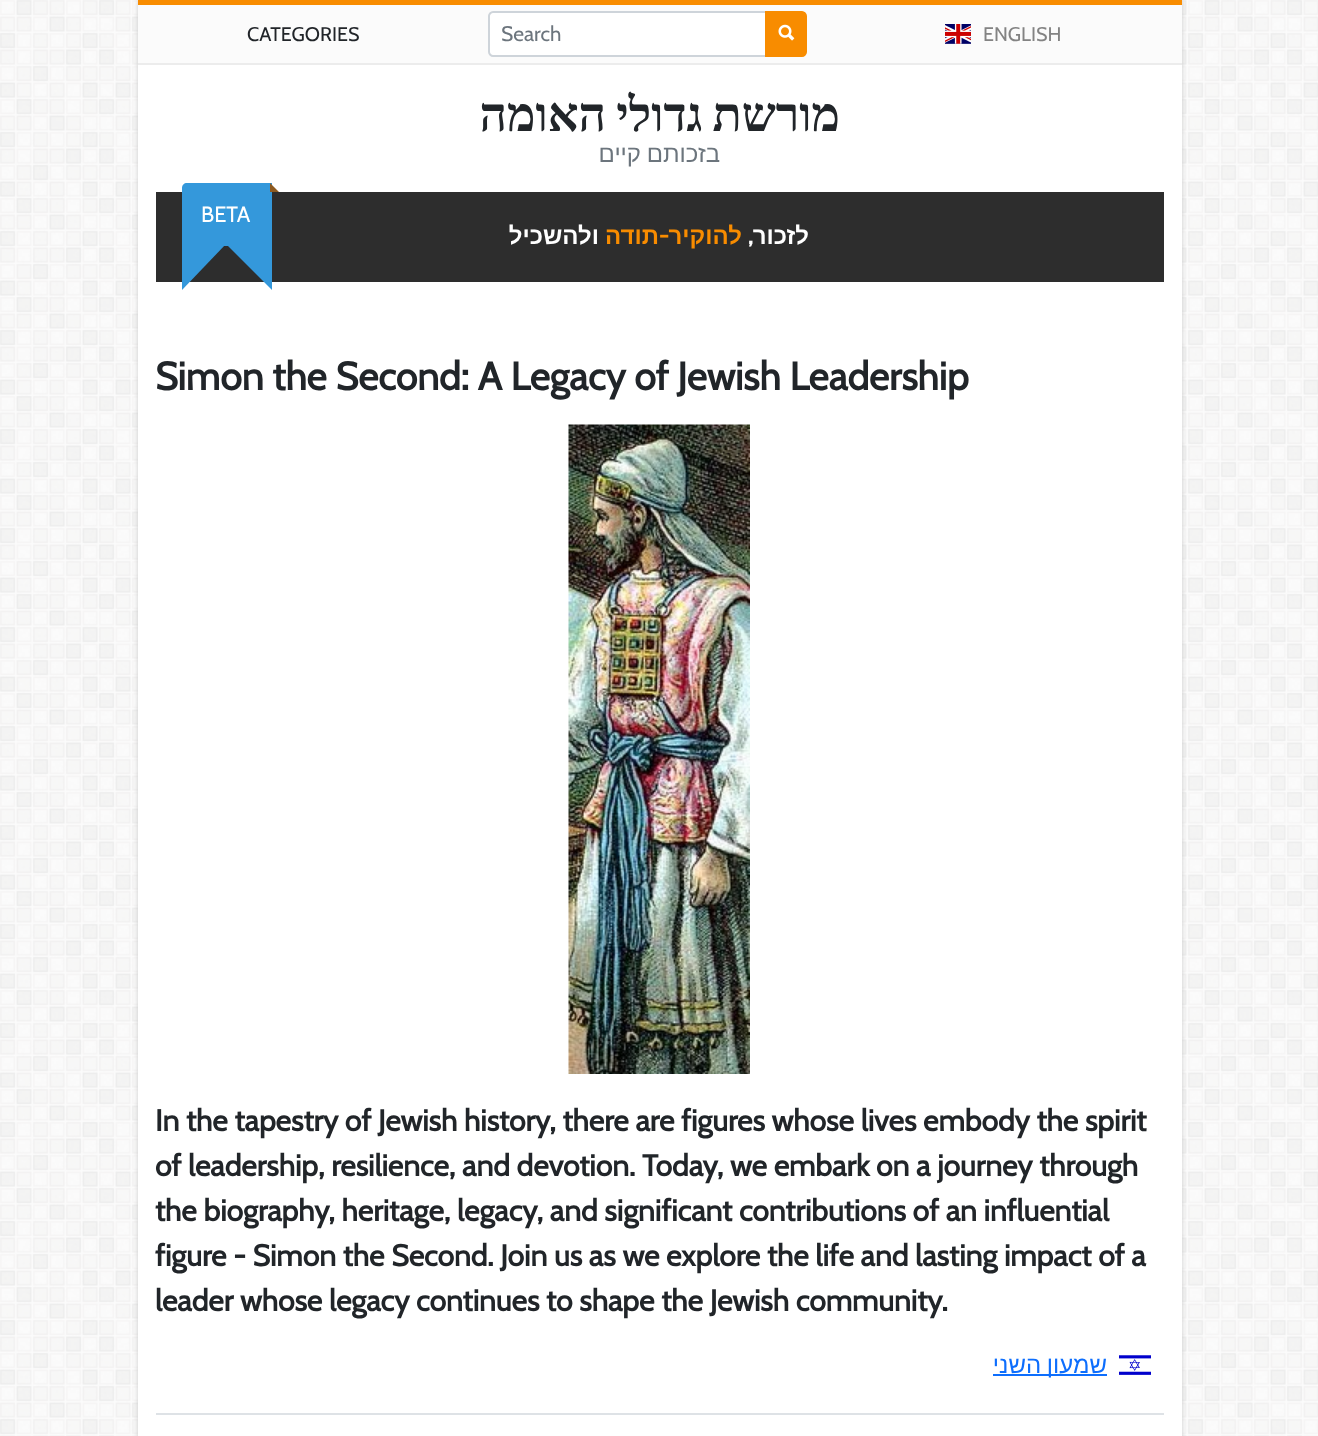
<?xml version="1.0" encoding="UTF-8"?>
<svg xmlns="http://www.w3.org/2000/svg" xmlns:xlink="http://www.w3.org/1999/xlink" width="1318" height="1436">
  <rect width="100%" height="100%" fill="#ffffff" />
  <image x="0" y="0" width="1318" height="1436" xlink:href="image1.png" />
  <rect x="138" width="1044" height="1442" fill="#cacaca" filter="blur(2px)" />
  <rect x="138" y="65" width="1044" height="1371" fill="#ffffff" />
  <rect x="138" width="1044" height="5" fill="#f88c00" />
  <rect x="138" y="5" width="1044" height="58" fill="#fbfbfb" />
  <rect x="138" y="63" width="1044" height="2" fill="#ececec" />
  <path d="M 493 12 h 273 v 44 h -273 c -2 0 -4 -2 -4 -4 v -36 c 0 -2 2 -4 4 -4 z" fill="#ffffff" stroke="#ced4da" stroke-width="2" />
  <path d="M 766 12 h 36 c 2 0 4 2 4 4 v 36 c 0 2 -2 4 -4 4 h -36 z" fill="#f88c00" stroke="#f88c00" stroke-width="2" />
  <image x="778" y="24" width="17" height="17" xlink:href="image2.png" />
  <image x="945" y="24" width="26" height="20" xlink:href="image3.png" />
  <rect x="156" y="192" width="1008" height="90" fill="#2d2d2d" />
  <path d="M 187 183 h 85 v 63 h -90 v -58 c 0 -3 2 -5 5 -5 z" fill="#3498db" />
  <path d="M 279 192 h -9 v -9 z" fill="#8d5a20" />
  <path d="M 272 244 v 46 l -46 -46 z" fill="#3498db" />
  <path d="M 182 290 v -46 h 44 z" fill="#3498db" />
  <image x="568" y="424" width="182" height="650" xlink:href="image4.png" />
  <rect x="993" y="1374" width="114" height="2" fill="#0d6efd" />
  <image x="1119" y="1355" width="32" height="20" xlink:href="image5.png" />
  <rect x="156" y="1413" width="1008" height="2" fill="#dee2e6" />
  <text x="247" y="41" style="font-family: Cabin; font-size: 19.75px; fill: #212529">CATEGORIES</text>
  <text x="501" y="41" style="font-family: Cabin; font-size: 21px; fill: #6c757d">Search</text>
  <text x="983" y="41" style="font-family: Cabin; font-size: 19.75px; fill: #838383">ENGLISH</text>
  <text x="840" y="131" word-spacing="-2" style="font-family: Liberation Serif; font-size: 48px; font-weight: bold; direction: rtl; fill: #212529">מורשת גדולי האומה</text>
  <text x="720" y="162" word-spacing="-1" style="font-family: Liberation Sans; font-size: 24px; direction: rtl; fill: #6c757d">בזכותם קיים</text>
  <text x="201" y="222" style="font-family: Cabin; font-size: 22px; fill: #ffffff">BETA</text>
  <text x="599" y="244" style="font-family: Liberation Sans; font-size: 24px; font-weight: bold; direction: rtl; fill: #ffffff">ולהשכיל</text>
  <text x="659" y="244" style="font-family: Liberation Sans; font-size: 24px; font-weight: bold; direction: rtl; fill: #f88c00">תודה</text>
  <text x="669" y="244" style="font-family: Cabin; font-size: 24px; font-weight: bold; direction: rtl; fill: #f88c00">-</text>
  <text x="742" y="244" style="font-family: Liberation Sans; font-size: 24px; font-weight: bold; direction: rtl; fill: #f88c00">להוקיר</text>
  <text x="809" y="244" style="font-family: Liberation Sans; font-size: 24px; font-weight: bold; direction: rtl; fill: #ffffff">לזכור</text>
  <text x="753" y="244" style="font-family: Cabin; font-size: 24px; font-weight: bold; direction: rtl; fill: #ffffff">,</text>
  <text x="155" y="390" style="font-family: Cabin; font-size: 39.1px; font-weight: bold; fill: #212529">Simon the Second: A Legacy of Jewish Leadership</text>
  <text x="155" y="1131" style="font-family: Cabin; font-size: 30px; font-weight: bold; fill: #212529">In the tapestry of Jewish history, there are figures whose lives embody the spirit</text>
  <text x="155" y="1176" style="font-family: Cabin; font-size: 30px; font-weight: bold; fill: #212529">of leadership, resilience, and devotion. Today, we embark on a journey through</text>
  <text x="155" y="1221" style="font-family: Cabin; font-size: 30px; font-weight: bold; fill: #212529">the biography, heritage, legacy, and significant contributions of an influential</text>
  <text x="155" y="1266" style="font-family: Cabin; font-size: 30px; font-weight: bold; fill: #212529">figure - Simon the Second. Join us as we explore the life and lasting impact of a</text>
  <text x="155" y="1311" style="font-family: Cabin; font-size: 30px; font-weight: bold; fill: #212529">leader whose legacy continues to shape the Jewish community.</text>
  <text x="1107" y="1373" word-spacing="-1" style="font-family: Liberation Sans; font-size: 24px; direction: rtl; fill: #0d6efd">שמעון השני</text>
</svg>
